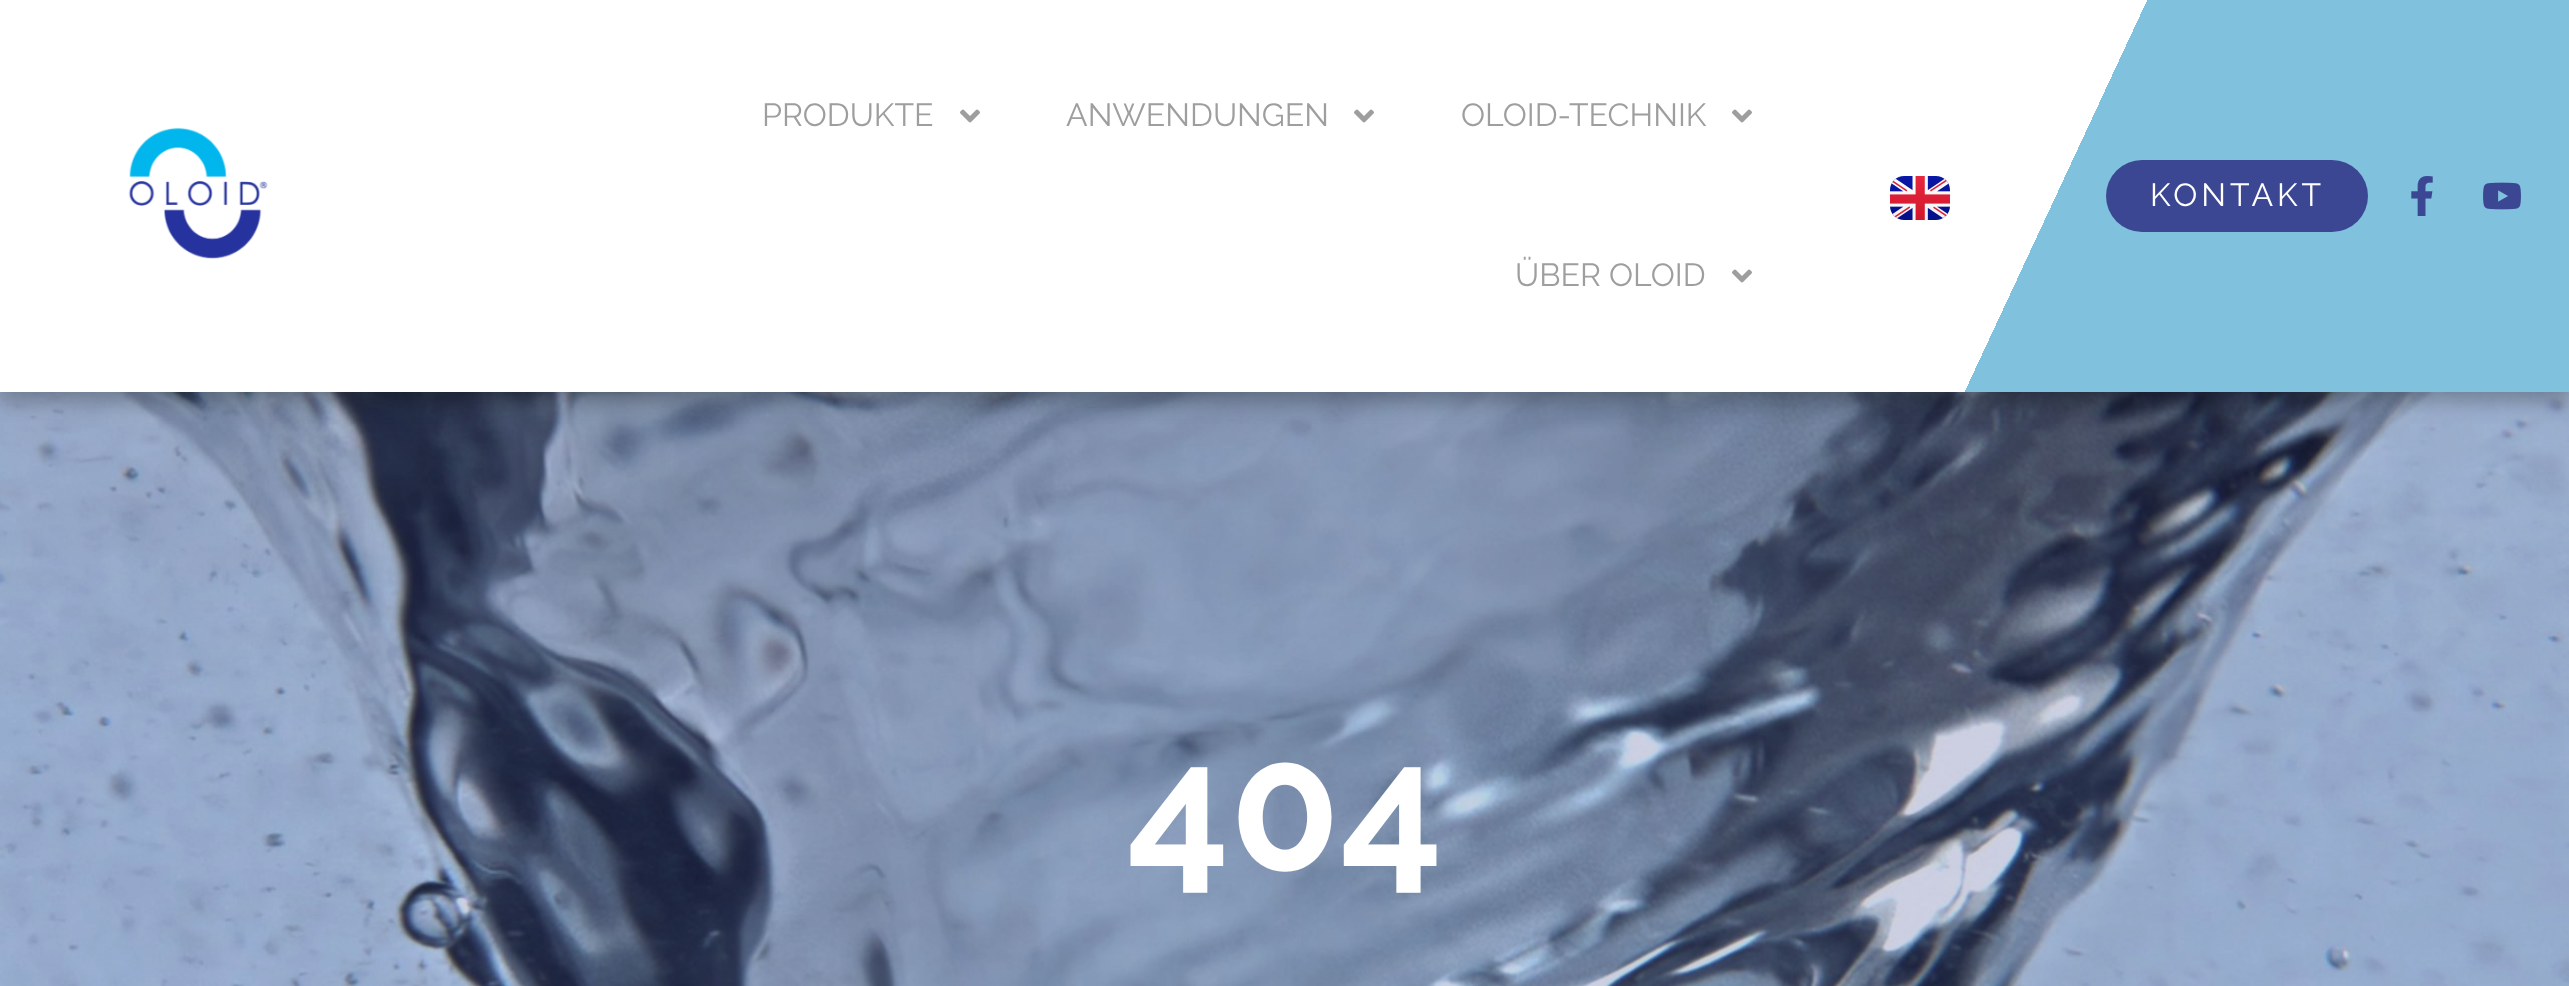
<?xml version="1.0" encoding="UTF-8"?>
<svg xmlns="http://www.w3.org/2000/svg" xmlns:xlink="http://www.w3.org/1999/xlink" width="2569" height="986">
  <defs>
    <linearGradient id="g1" gradientUnits="userSpaceOnUse" x1="154" y1="-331" x2="2416" y2="723"><stop offset="0.78" stop-color="#ffffff" /><stop offset="0.78" stop-color="#80c2dd" /></linearGradient>
  </defs>
  <rect width="100%" height="100%" fill="#ffffff" />
  <image x="0" y="392" width="2569" height="594" xlink:href="image6.png" />
  <rect y="10" width="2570" height="392" fill="#000000" fill-opacity="0.25" filter="blur(10px)" />
  <rect width="2569" height="392" fill="url(#g1)" />
  <image x="128" y="128" width="140" height="131" xlink:href="image1.png" />
  <image x="960" y="109" width="20" height="14" xlink:href="image2.png" />
  <image x="1354" y="109" width="20" height="14" xlink:href="image2.png" />
  <image x="1732" y="109" width="20" height="14" xlink:href="image2.png" />
  <image x="1732" y="269" width="20" height="14" xlink:href="image2.png" />
  <image x="1890" y="176" width="60" height="44" xlink:href="image3.png" />
  <rect x="2106" y="160" width="262" height="72" rx="36" fill="#3b4792" />
  <image x="2411" y="176" width="22" height="40" xlink:href="image4.png" />
  <image x="2483" y="182" width="38" height="28" xlink:href="image5.png" />
  <text x="762" y="126" style="font-family: Raleway; font-size: 32px; fill: #9f9e9e">PRODUKTE</text>
  <text x="1066" y="126" style="font-family: Raleway; font-size: 32px; fill: #9f9e9e">ANWENDUNGEN</text>
  <text x="1461" y="126" style="font-family: Raleway; font-size: 32px; fill: #9f9e9e">OLOID-TECHNIK</text>
  <text x="1515" y="286" style="font-family: Raleway; font-size: 32px; fill: #9f9e9e">ÜBER OLOID</text>
  <text x="2150" y="206" style="font-family: Raleway; font-size: 32px; letter-spacing: 4px; fill: #ffffff">KONTAKT</text>
  <text x="1127" y="870" style="font-family: Raleway; font-size: 180px; font-weight: bold; fill: #ffffff">404</text>
</svg>
